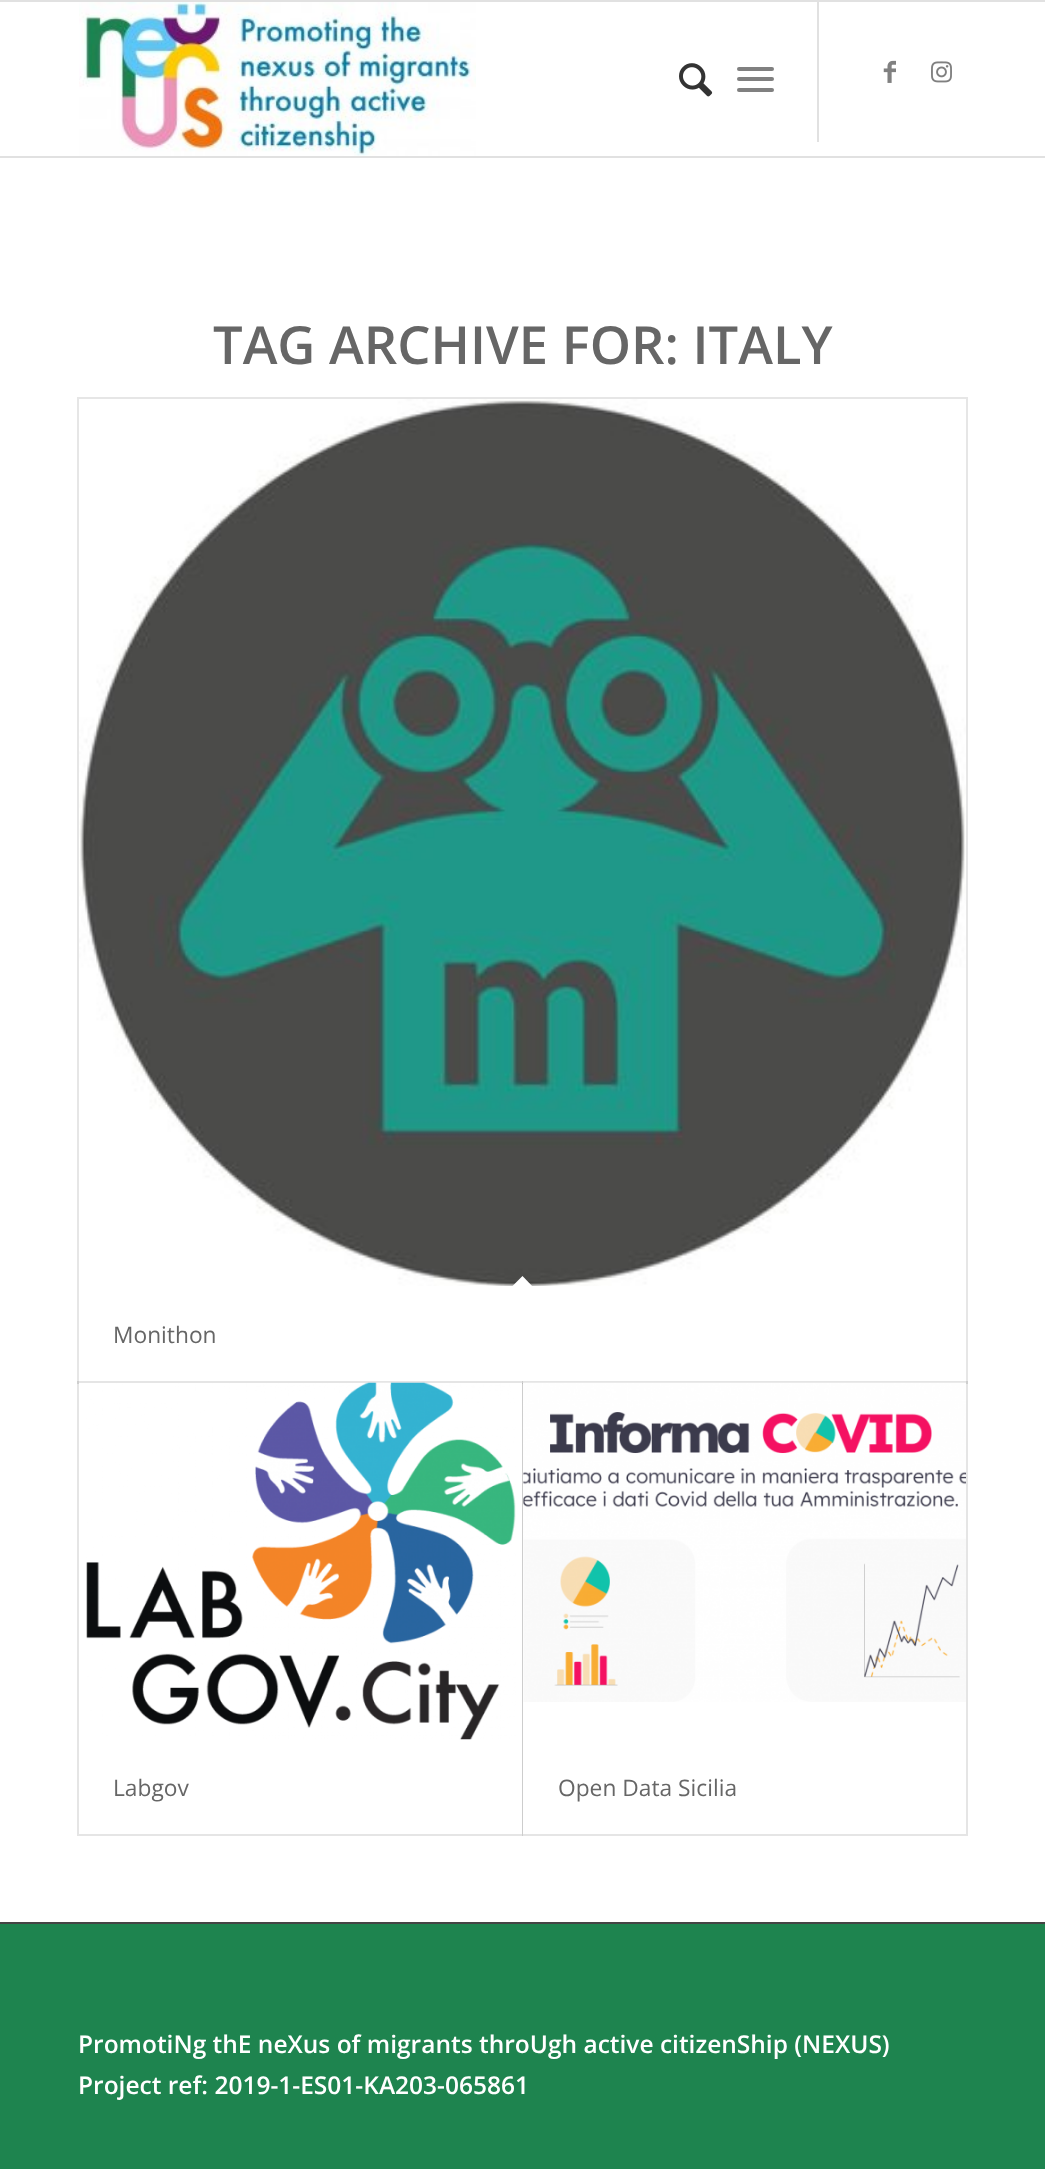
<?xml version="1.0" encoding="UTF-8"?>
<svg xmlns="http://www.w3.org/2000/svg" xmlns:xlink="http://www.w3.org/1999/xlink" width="1045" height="2169">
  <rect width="100%" height="100%" fill="#ffffff" />
  <rect width="1045" height="2" fill="#e1e1e1" />
  <rect y="156" width="1045" height="2" fill="#e1e1e1" />
  <image x="79" y="2" width="397" height="154" xlink:href="image1.png" />
  <rect x="817" y="2" width="2" height="140" fill="#e1e1e1" />
  <image x="679" y="63" width="34" height="34" xlink:href="image2.png" />
  <rect x="737" y="77" width="37" height="4" rx="2" fill="#808080" />
  <rect x="737" y="67" width="37" height="4" rx="2" fill="#808080" />
  <rect x="737" y="88" width="37" height="4" rx="2" fill="#808080" />
  <image x="883" y="60" width="13" height="23" xlink:href="image3.png" />
  <image x="931" y="61" width="21" height="22" xlink:href="image4.png" />
  <rect x="78" y="398" width="889" height="985" fill="none" stroke="#e6e6e6" stroke-width="2" />
  <image x="79" y="399" width="887" height="887" xlink:href="image5.png" />
  <rect x="79" y="1382" width="887" height="1" fill="#ffffff" />
  <path d="M 522.5 1276 l 12 12.5 l -12 12.5 l -12.5 -12.5 z" fill="#ffffff" />
  <rect x="78" y="1382" width="444" height="453" fill="none" stroke="#000000" stroke-opacity="0.1" stroke-width="2" />
  <rect x="79" y="1383" width="443" height="451" fill="#ffffff" />
  <image x="86" y="1382" width="430" height="358" xlink:href="image6.png" />
  <rect x="523" y="1382" width="444" height="453" fill="none" stroke="#000000" stroke-opacity="0.1" stroke-width="2" />
  <rect x="523" y="1383" width="443" height="451" fill="#ffffff" />
  <image x="523" y="1382" width="443" height="320" xlink:href="image7.png" />
  <rect y="1924" width="1045" height="245" fill="#1e844f" />
  <rect y="1922" width="1045" height="2" fill="#444444" />
  <text x="213" y="364" style="font-family: Open Sans; font-size: 52.5px; font-weight: 600; fill: #666666">TAG ARCHIVE FOR: ITALY</text>
  <text x="113" y="1343" style="font-family: Open Sans; font-size: 22.75px; fill: #666666">Monithon</text>
  <text x="113" y="1796" style="font-family: Open Sans; font-size: 22.75px; fill: #666666">Labgov</text>
  <text x="558" y="1796" style="font-family: Open Sans; font-size: 22.75px; fill: #666666">Open Data Sicilia</text>
  <text x="78" y="2053" style="font-family: Open Sans; font-size: 24.5px; font-weight: 600; fill: #ffffff">PromotiNg thE neXus of migrants throUgh active citizenShip (NEXUS)</text>
  <text x="78" y="2094" style="font-family: Open Sans; font-size: 24.5px; font-weight: 600; fill: #ffffff">Project ref: 2019-1-ES01-KA203-065861</text>
</svg>
